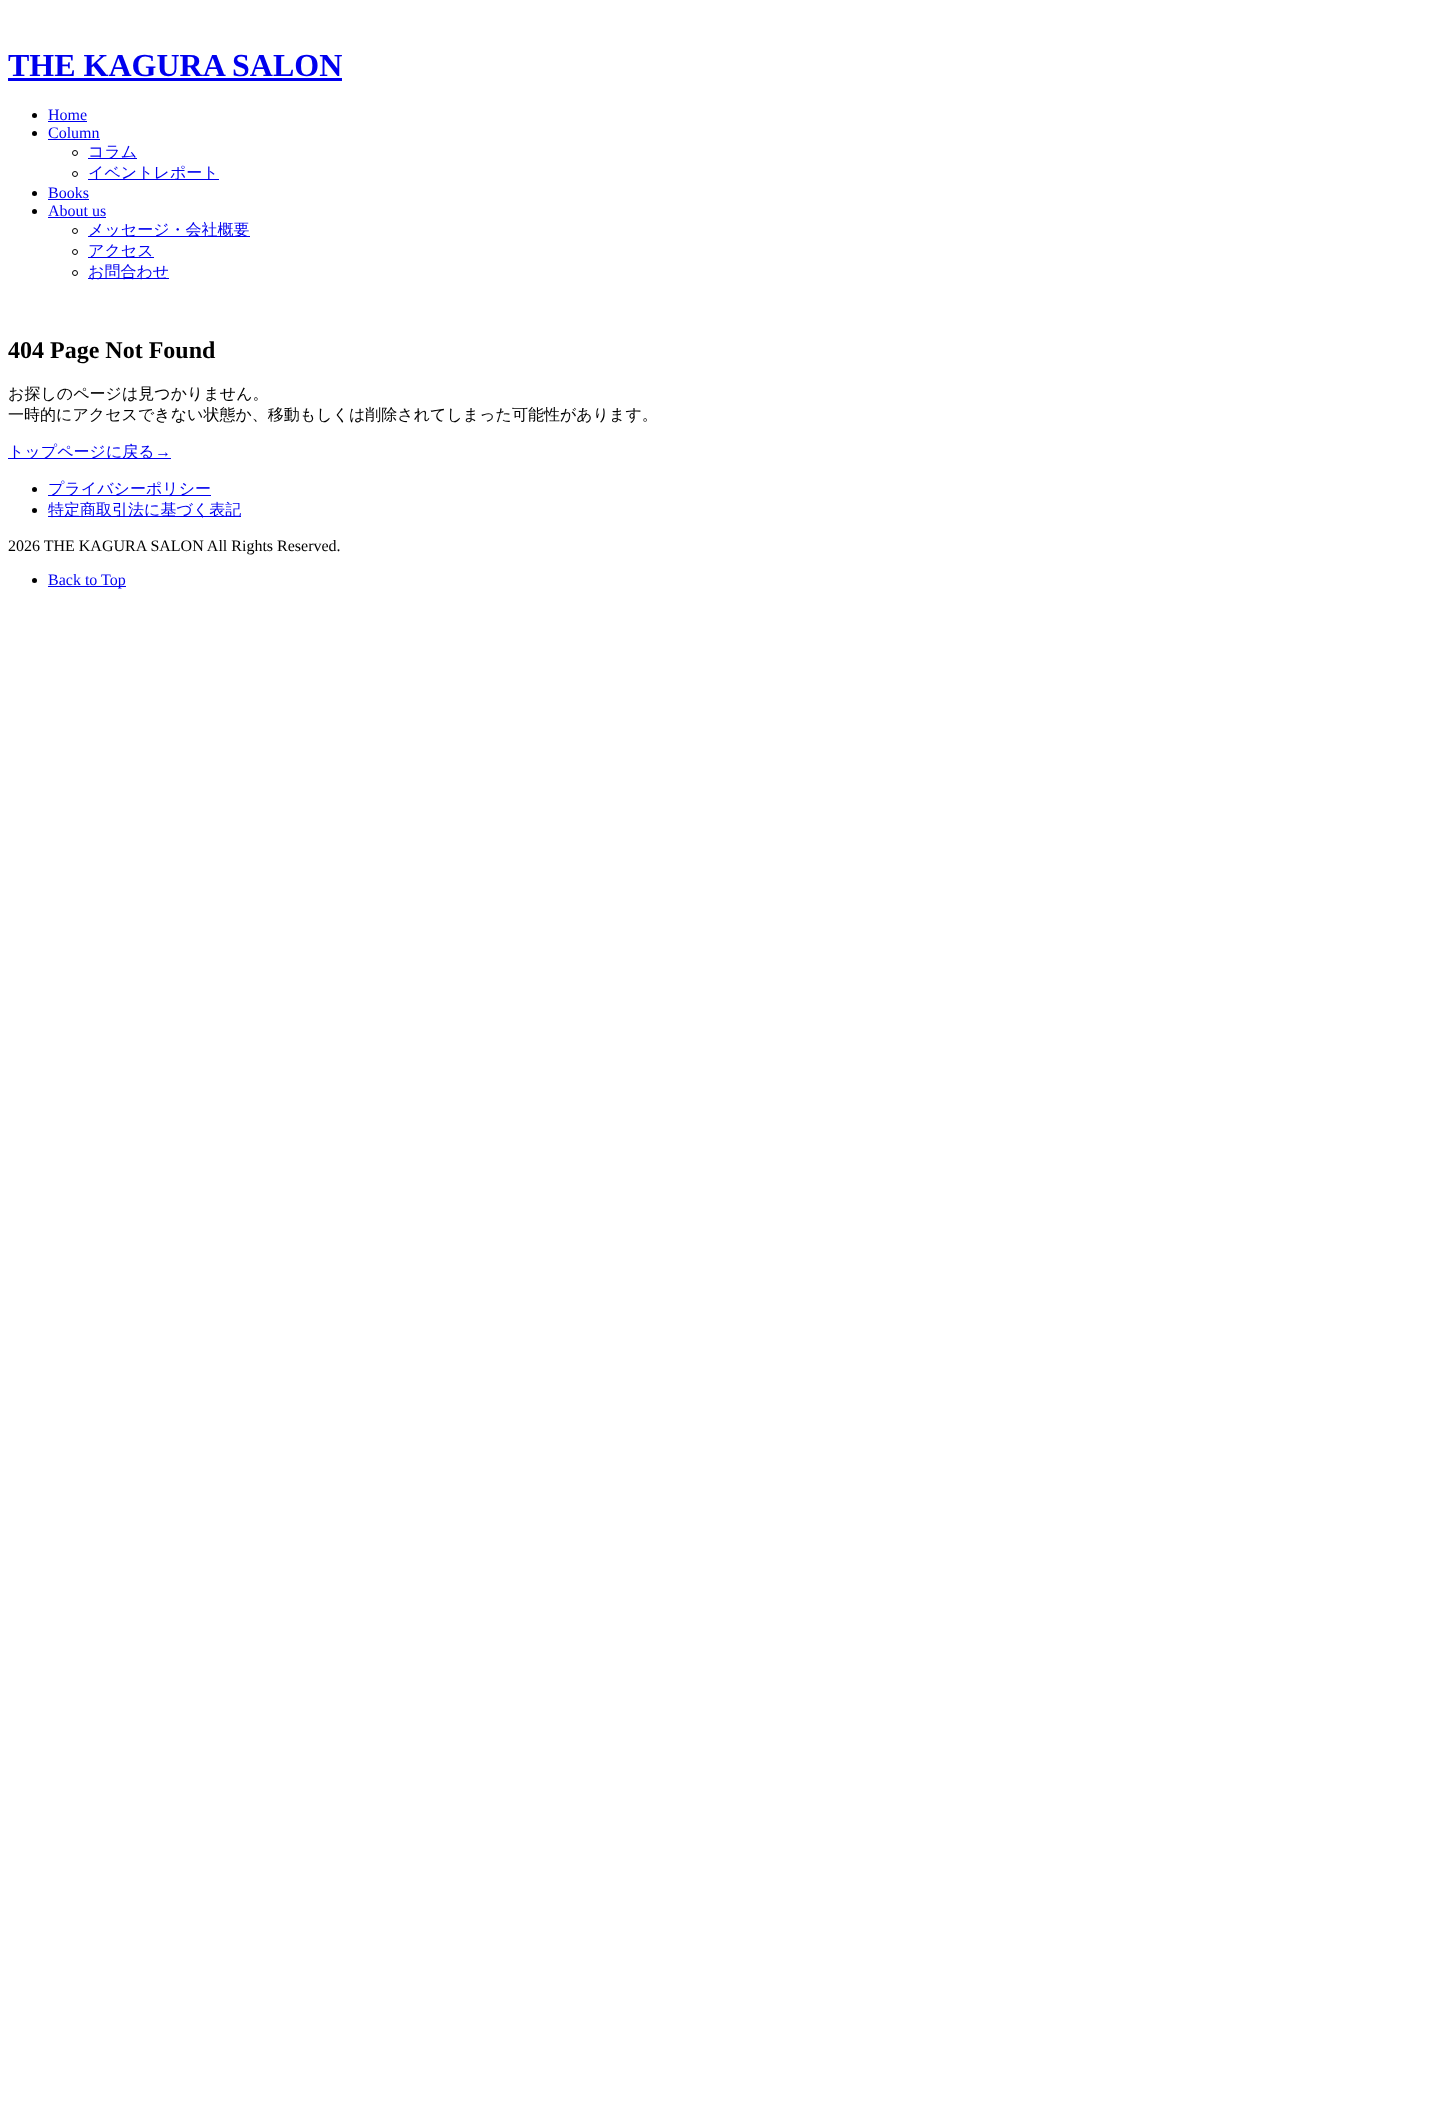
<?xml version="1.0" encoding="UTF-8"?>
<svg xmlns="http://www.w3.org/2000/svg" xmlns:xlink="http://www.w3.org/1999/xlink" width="1447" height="2116">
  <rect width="100%" height="100%" fill="#ffffff" />
  <rect x="8" y="78" width="334" height="3" fill="#0000ee" />
  <circle cx="34.5" cy="115.5" r="2.5" fill="#000000" />
  <rect x="48" y="121" width="39" height="1" fill="#0000ee" />
  <circle cx="34.5" cy="133.5" r="2.5" fill="#000000" />
  <rect x="48" y="139" width="52" height="1" fill="#0000ee" />
  <circle cx="75" cy="153" r="2.5" fill="none" stroke="#000000" />
  <rect x="88" y="158" width="49" height="1" fill="#0000ee" />
  <circle cx="75" cy="174" r="2.5" fill="none" stroke="#000000" />
  <rect x="88" y="179" width="131" height="1" fill="#0000ee" />
  <circle cx="34.5" cy="193.5" r="2.5" fill="#000000" />
  <rect x="48" y="199" width="41" height="1" fill="#0000ee" />
  <circle cx="34.5" cy="211.5" r="2.5" fill="#000000" />
  <rect x="48" y="217" width="58" height="1" fill="#0000ee" />
  <circle cx="75" cy="231" r="2.5" fill="none" stroke="#000000" />
  <rect x="88" y="236" width="162" height="1" fill="#0000ee" />
  <circle cx="75" cy="252" r="2.5" fill="none" stroke="#000000" />
  <rect x="88" y="257" width="66" height="1" fill="#0000ee" />
  <circle cx="75" cy="273" r="2.5" fill="none" stroke="#000000" />
  <rect x="88" y="278" width="81" height="1" fill="#0000ee" />
  <rect x="8" y="458" width="163" height="1" fill="#0000ee" />
  <circle cx="34.5" cy="489.5" r="2.5" fill="#000000" />
  <rect x="48" y="495" width="163" height="1" fill="#0000ee" />
  <circle cx="34.5" cy="510.5" r="2.5" fill="#000000" />
  <rect x="48" y="516" width="193" height="1" fill="#0000ee" />
  <circle cx="34.5" cy="580.5" r="2.5" fill="#000000" />
  <rect x="48" y="586" width="78" height="1" fill="#0000ee" />
  <text x="8" y="76" style="font-family: Liberation Serif; font-size: 32px; font-weight: bold; fill: #0000ee">THE KAGURA SALON</text>
  <text x="48" y="120" style="font-family: Liberation Serif; font-size: 16px; fill: #0000ee">Home</text>
  <text x="48" y="138" style="font-family: Liberation Serif; font-size: 16px; fill: #0000ee">Column</text>
  <text x="88" y="157" style="font-family: WenQuanYi Zen Hei; font-size: 16px; font-weight: 500; fill: #0000ee">コラム</text>
  <text x="88" y="178" style="font-family: WenQuanYi Zen Hei; font-size: 16px; font-weight: 500; fill: #0000ee">イベントレポート</text>
  <text x="48" y="198" style="font-family: Liberation Serif; font-size: 16px; fill: #0000ee">Books</text>
  <text x="48" y="216" style="font-family: Liberation Serif; font-size: 16px; fill: #0000ee">About us</text>
  <text x="88" y="235" style="font-family: WenQuanYi Zen Hei; font-size: 16px; font-weight: 500; fill: #0000ee">メッセージ・会社概要</text>
  <text x="88" y="256" style="font-family: WenQuanYi Zen Hei; font-size: 16px; font-weight: 500; fill: #0000ee">アクセス</text>
  <text x="88" y="277" style="font-family: WenQuanYi Zen Hei; font-size: 16px; font-weight: 500; fill: #0000ee">お問合わせ</text>
  <text x="8" y="358" style="font-family: Liberation Serif; font-size: 24px; font-weight: bold; fill: #000000">404 Page Not Found</text>
  <text x="8" y="399" style="font-family: WenQuanYi Zen Hei; font-size: 16px; font-weight: 500; fill: #000000">お探しのページは見つかりません。</text>
  <text x="8" y="420" style="font-family: WenQuanYi Zen Hei; font-size: 16px; font-weight: 500; fill: #000000">一時的にアクセスできない状態か、移動もしくは削除されてしまった可能性があります。</text>
  <text x="8" y="457" style="font-family: WenQuanYi Zen Hei; font-size: 16px; font-weight: 500; fill: #0000ee">トップページに戻る</text>
  <text x="155" y="457" style="font-family: Liberation Serif; font-size: 16px; fill: #0000ee">→</text>
  <text x="48" y="494" style="font-family: WenQuanYi Zen Hei; font-size: 16px; font-weight: 500; fill: #0000ee">プライバシーポリシー</text>
  <text x="48" y="515" style="font-family: WenQuanYi Zen Hei; font-size: 16px; font-weight: 500; fill: #0000ee">特定商取引法に基づく表記</text>
  <text x="8" y="551" style="font-family: Liberation Serif; font-size: 16px; fill: #000000">2026 THE KAGURA SALON All Rights Reserved.</text>
  <text x="48" y="585" style="font-family: Liberation Serif; font-size: 16px; fill: #0000ee">Back to Top</text>
</svg>
